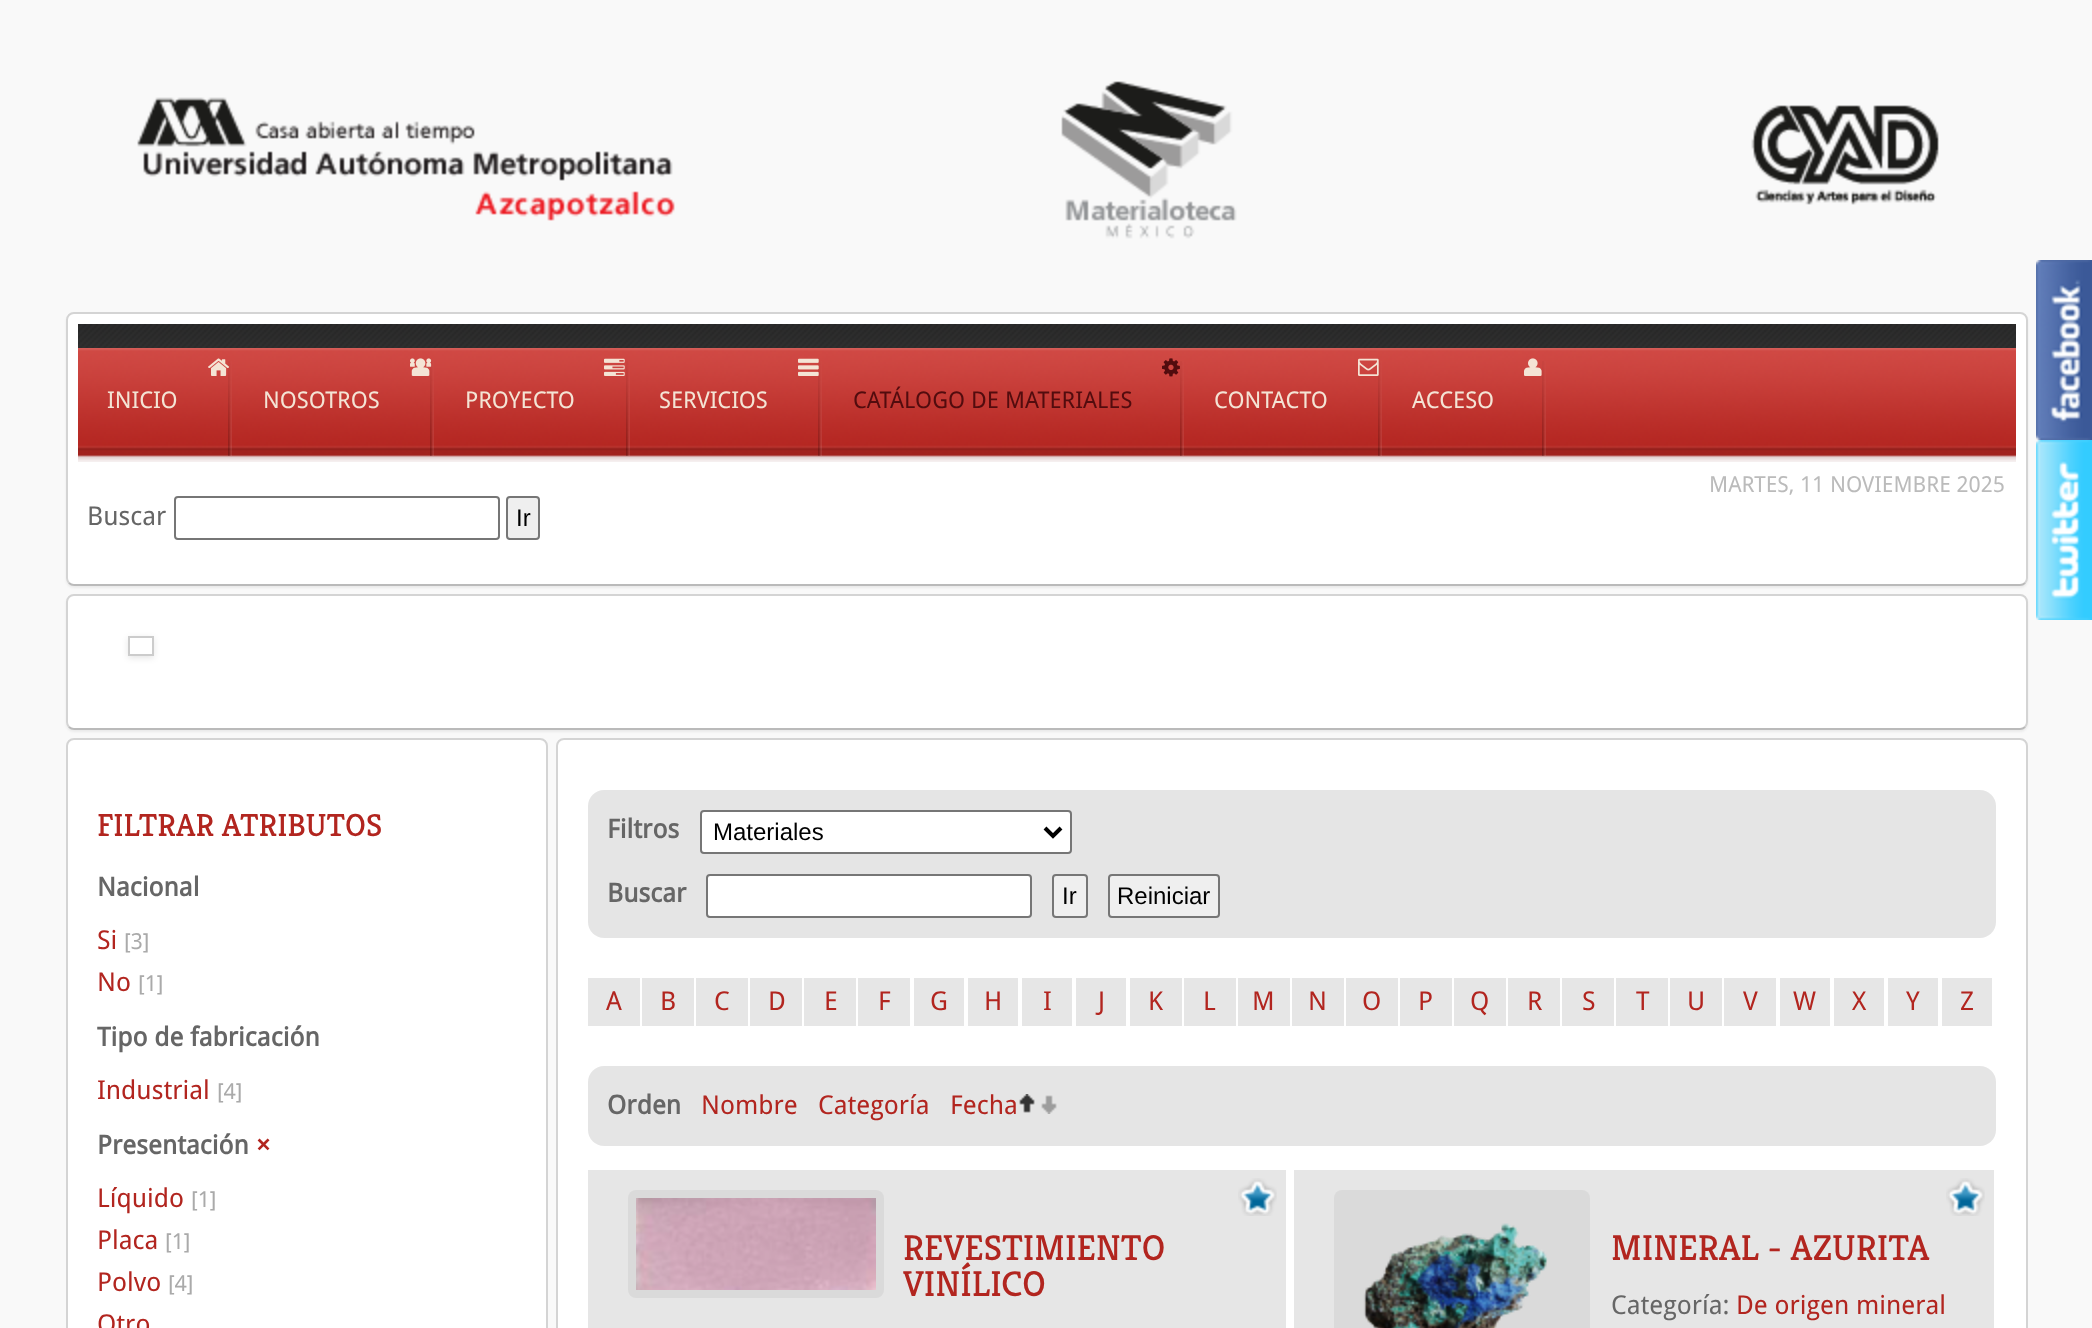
<?xml version="1.0" encoding="UTF-8"?>
<svg xmlns="http://www.w3.org/2000/svg" xmlns:xlink="http://www.w3.org/1999/xlink" width="2092" height="1328">
  <defs>
    <clipPath id="clip1"><path d="M 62 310 h 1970 v 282 h -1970 z m 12 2 h 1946 c 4.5 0 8 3.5 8 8 v 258 c 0 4.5 -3.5 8 -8 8 h -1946 c -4.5 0 -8 -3.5 -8 -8 v -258 c 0 -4.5 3.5 -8 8 -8 z" clip-rule="evenodd" /></clipPath>
    <clipPath id="clip2"><path d="M 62 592 h 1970 v 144 h -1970 z m 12 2 h 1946 c 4.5 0 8 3.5 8 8 v 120 c 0 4.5 -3.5 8 -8 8 h -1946 c -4.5 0 -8 -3.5 -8 -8 v -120 c 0 -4.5 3.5 -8 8 -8 z" clip-rule="evenodd" /></clipPath>
    <clipPath id="clip3"><path d="M 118 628 h 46 v 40 h -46 z m 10 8 h 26 v 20 h -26 z" clip-rule="evenodd" /></clipPath>
  </defs>
  <rect width="100%" height="100%" fill="#f9f9f9" />
  <image x="137" y="81" width="1802" height="158" xlink:href="image1.png" />
  <g clip-path="url(#clip1)">
    <rect x="66" y="314" width="1962" height="274" rx="8" fill="#000000" fill-opacity="0.06" filter="blur(1px)" />
  </g>
  <rect x="68" y="314" width="1958" height="270" rx="6" fill="#ffffff" />
  <path d="M 2025 583 c -1.5 1.5 -3 2 -5 2 h -1946 c -2 0 -3.5 -0.5 -5 -2" fill="none" stroke="#000000" stroke-opacity="0.25" stroke-width="2" />
  <path d="M 69 583 c -1.5 -1.5 -2 -3 -2 -5 v -258 c 0 -2 0.5 -3.5 2 -5 c 1.5 -1.5 3 -2 5 -2 h 1946 c 2 0 3.5 0.5 5 2 c 1.5 1.5 2 3 2 5 v 258 c 0 2 -0.5 3.5 -2 5" fill="none" stroke="#000000" stroke-opacity="0.15" stroke-width="2" />
  <image x="78" y="324" width="1938" height="24" xlink:href="image2.png" />
  <image x="78" y="348" width="1938" height="114" xlink:href="image3.png" />
  <image x="228" y="361" width="4" height="95" xlink:href="image4.png" />
  <image x="208" y="358" width="21" height="18" xlink:href="image5.png" />
  <image x="430" y="361" width="4" height="95" xlink:href="image6.png" />
  <image x="410" y="358" width="22" height="18" xlink:href="image7.png" />
  <image x="626" y="361" width="4" height="95" xlink:href="image8.png" />
  <image x="604" y="358" width="21" height="18" xlink:href="image9.png" />
  <image x="818" y="361" width="4" height="95" xlink:href="image10.png" />
  <image x="798" y="358" width="21" height="18" xlink:href="image11.png" />
  <image x="1180" y="361" width="4" height="95" xlink:href="image12.png" />
  <image x="1162" y="358" width="18" height="19" xlink:href="image13.png" />
  <image x="1378" y="361" width="4" height="95" xlink:href="image14.png" />
  <image x="1358" y="358" width="21" height="18" xlink:href="image15.png" />
  <image x="1542" y="361" width="4" height="95" xlink:href="image16.png" />
  <image x="1524" y="358" width="18" height="18" xlink:href="image17.png" />
  <rect x="175" y="497" width="324" height="42" rx="3" fill="none" stroke="#767676" stroke-width="2" />
  <rect x="507" y="497" width="32" height="42" rx="3" fill="#efefef" stroke="#767676" stroke-width="2" />
  <image x="2036" y="260" width="56" height="180" xlink:href="image18.png" />
  <image x="2036" y="440" width="56" height="180" xlink:href="image19.png" />
  <g clip-path="url(#clip2)">
    <rect x="66" y="596" width="1962" height="136" rx="8" fill="#000000" fill-opacity="0.06" filter="blur(1px)" />
  </g>
  <rect x="68" y="596" width="1958" height="132" rx="6" fill="#ffffff" />
  <path d="M 2025 727 c -1.5 1.5 -3 2 -5 2 h -1946 c -2 0 -3.5 -0.5 -5 -2" fill="none" stroke="#000000" stroke-opacity="0.25" stroke-width="2" />
  <path d="M 69 727 c -1.5 -1.5 -2 -3 -2 -5 v -120 c 0 -2 0.5 -3.5 2 -5 c 1.5 -1.5 3 -2 5 -2 h 1946 c 2 0 3.5 0.5 5 2 c 1.5 1.5 2 3 2 5 v 120 c 0 2 -0.5 3.5 -2 5" fill="none" stroke="#000000" stroke-opacity="0.15" stroke-width="2" />
  <g clip-path="url(#clip3)">
    <rect x="128" y="638" width="26" height="20" fill="#000000" fill-opacity="0.1" filter="blur(3px)" />
  </g>
  <rect x="129" y="637" width="24" height="18" fill="none" stroke="#cccccc" stroke-width="2" />
  <rect x="68" y="740" width="478" height="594" rx="6" fill="#ffffff" />
  <path d="M 69 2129 c -1.5 -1.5 -2 -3 -2 -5 v -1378 c 0 -2 0.5 -3.5 2 -5 c 1.5 -1.5 3 -2 5 -2 h 466 c 2 0 3.5 0.5 5 2 c 1.5 1.5 2 3 2 5 v 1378 c 0 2 -0.5 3.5 -2 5" fill="none" stroke="#d4d4d4" stroke-width="2" />
  <rect x="558" y="740" width="1468" height="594" rx="6" fill="#ffffff" />
  <path d="M 559 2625 c -1.5 -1.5 -2 -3 -2 -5 v -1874 c 0 -2 0.5 -3.5 2 -5 c 1.5 -1.5 3 -2 5 -2 h 1456 c 2 0 3.5 0.5 5 2 c 1.5 1.5 2 3 2 5 v 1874 c 0 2 -0.5 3.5 -2 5" fill="none" stroke="#d4d4d4" stroke-width="2" />
  <image x="588" y="790" width="1408" height="148" xlink:href="image20.png" />
  <rect x="701" y="811" width="370" height="42" rx="3" fill="#ffffff" stroke="#767676" stroke-width="2" />
  <path d="M 1045 828 l 8 8 l 8 -8" fill="none" stroke="#000000" stroke-width="4" />
  <rect x="707" y="875" width="324" height="42" rx="3" fill="#ffffff" stroke="#767676" stroke-width="2" />
  <rect x="1053" y="875" width="34" height="42" rx="3" fill="#efefef" stroke="#767676" stroke-width="2" />
  <rect x="1109" y="875" width="110" height="42" rx="3" fill="#efefef" stroke="#767676" stroke-width="2" />
  <rect x="588" y="978" width="52" height="48" fill="#e6e6e6" />
  <rect x="642" y="978" width="52" height="48" fill="#e6e6e6" />
  <rect x="696" y="978" width="52" height="48" fill="#e6e6e6" />
  <rect x="750" y="978" width="52" height="48" fill="#e6e6e6" />
  <rect x="804" y="978" width="52" height="48" fill="#e6e6e6" />
  <rect x="858" y="978" width="52" height="48" fill="#e6e6e6" />
  <rect x="914" y="978" width="50" height="48" fill="#e6e6e6" />
  <rect x="968" y="978" width="50" height="48" fill="#e6e6e6" />
  <rect x="1022" y="978" width="50" height="48" fill="#e6e6e6" />
  <rect x="1076" y="978" width="50" height="48" fill="#e6e6e6" />
  <rect x="1130" y="978" width="52" height="48" fill="#e6e6e6" />
  <rect x="1184" y="978" width="52" height="48" fill="#e6e6e6" />
  <rect x="1238" y="978" width="52" height="48" fill="#e6e6e6" />
  <rect x="1292" y="978" width="52" height="48" fill="#e6e6e6" />
  <rect x="1346" y="978" width="52" height="48" fill="#e6e6e6" />
  <rect x="1400" y="978" width="52" height="48" fill="#e6e6e6" />
  <rect x="1454" y="978" width="52" height="48" fill="#e6e6e6" />
  <rect x="1508" y="978" width="52" height="48" fill="#e6e6e6" />
  <rect x="1562" y="978" width="52" height="48" fill="#e6e6e6" />
  <rect x="1616" y="978" width="52" height="48" fill="#e6e6e6" />
  <rect x="1670" y="978" width="52" height="48" fill="#e6e6e6" />
  <rect x="1724" y="978" width="52" height="48" fill="#e6e6e6" />
  <rect x="1780" y="978" width="50" height="48" fill="#e6e6e6" />
  <rect x="1834" y="978" width="50" height="48" fill="#e6e6e6" />
  <rect x="1888" y="978" width="50" height="48" fill="#e6e6e6" />
  <rect x="1942" y="978" width="50" height="48" fill="#e6e6e6" />
  <image x="588" y="1066" width="1408" height="80" xlink:href="image21.png" />
  <image x="1019" y="1094" width="38" height="20" xlink:href="image22.png" />
  <rect x="588" y="1170" width="698" height="158" fill="#e6e6e6" />
  <image x="628" y="1190" width="256" height="108" xlink:href="image23.png" />
  <image x="636" y="1198" width="240" height="92" xlink:href="image24.png" />
  <image x="1238" y="1178" width="39" height="38" xlink:href="image25.png" />
  <rect x="1294" y="1170" width="700" height="158" fill="#e6e6e6" />
  <image x="1334" y="1190" width="256" height="138" xlink:href="image26.png" />
  <image x="1364" y="1223" width="184" height="105" xlink:href="image27.png" />
  <image x="1946" y="1178" width="39" height="38" xlink:href="image25.png" />
  <text x="107" y="408" style="font-family: Droid Sans; font-size: 23px; fill: #f4e4d5">INICIO</text>
  <text x="263" y="408" style="font-family: Droid Sans; font-size: 23px; fill: #f4e4d5">NOSOTROS</text>
  <text x="465" y="408" style="font-family: Droid Sans; font-size: 23px; fill: #f4e4d5">PROYECTO</text>
  <text x="659" y="408" style="font-family: Droid Sans; font-size: 23px; fill: #f4e4d5">SERVICIOS</text>
  <text x="853" y="408" style="font-family: Droid Sans; font-size: 23px; fill: #520c0e">CATÁLOGO DE MATERIALES</text>
  <text x="1214" y="408" style="font-family: Droid Sans; font-size: 23px; fill: #f4e4d5">CONTACTO</text>
  <text x="1412" y="408" style="font-family: Droid Sans; font-size: 23px; fill: #f4e4d5">ACCESO</text>
  <text x="1709" y="492" style="font-family: Droid Sans; font-size: 22px; fill: #bbbbbb">MARTES, 11 NOVIEMBRE 2025</text>
  <text x="87" y="525" style="font-family: Droid Sans; font-size: 26px; fill: #666666">Buscar</text>
  <text x="516" y="526" style="font-family: Liberation Sans; font-size: 24px; fill: #000000">Ir</text>
  <text x="97" y="836" style="font-family: Kreon; font-size: 32px; fill: #b2251f">FILTRAR ATRIBUTOS</text>
  <text x="97" y="896" style="font-family: Droid Sans; font-size: 26px; font-weight: bold; fill: #666666">Nacional</text>
  <text x="97" y="949" style="font-family: Droid Sans; font-size: 26px; fill: #b2251f">Si</text>
  <text x="124" y="949" style="font-family: Droid Sans; font-size: 22px; fill: #aaaaaa">[3]</text>
  <text x="97" y="991" style="font-family: Droid Sans; font-size: 26px; fill: #b2251f">No</text>
  <text x="138" y="991" style="font-family: Droid Sans; font-size: 22px; fill: #aaaaaa">[1]</text>
  <text x="97" y="1046" style="font-family: Droid Sans; font-size: 26px; font-weight: bold; fill: #666666">Tipo de fabricación</text>
  <text x="97" y="1099" style="font-family: Droid Sans; font-size: 26px; fill: #b2251f">Industrial</text>
  <text x="217" y="1099" style="font-family: Droid Sans; font-size: 22px; fill: #aaaaaa">[4]</text>
  <text x="97" y="1154" style="font-family: Droid Sans; font-size: 26px; font-weight: bold; fill: #666666">Presentación</text>
  <text x="256" y="1154" style="font-family: Droid Sans; font-size: 26px; font-weight: bold; fill: #b2251f">×</text>
  <text x="97" y="1207" style="font-family: Droid Sans; font-size: 26px; fill: #b2251f">Líquido</text>
  <text x="191" y="1207" style="font-family: Droid Sans; font-size: 22px; fill: #aaaaaa">[1]</text>
  <text x="97" y="1249" style="font-family: Droid Sans; font-size: 26px; fill: #b2251f">Placa</text>
  <text x="165" y="1249" style="font-family: Droid Sans; font-size: 22px; fill: #aaaaaa">[1]</text>
  <text x="97" y="1291" style="font-family: Droid Sans; font-size: 26px; fill: #b2251f">Polvo</text>
  <text x="168" y="1291" style="font-family: Droid Sans; font-size: 22px; fill: #aaaaaa">[4]</text>
  <text x="97" y="1333" style="font-family: Droid Sans; font-size: 26px; fill: #b2251f">Otro</text>
  <text x="607" y="838" style="font-family: Droid Sans; font-size: 26px; font-weight: bold; fill: #666666">Filtros</text>
  <text x="713" y="840" style="font-family: Liberation Sans; font-size: 24px; fill: #000000">Materiales</text>
  <text x="607" y="902" style="font-family: Droid Sans; font-size: 26px; font-weight: bold; fill: #666666">Buscar</text>
  <text x="1062" y="904" style="font-family: Liberation Sans; font-size: 24px; fill: #000000">Ir</text>
  <text x="1117" y="904" style="font-family: Liberation Sans; font-size: 24px; fill: #000000">Reiniciar</text>
  <text x="606" y="1010" style="font-family: Droid Sans; font-size: 26px; fill: #b2251f">A</text>
  <text x="660" y="1010" style="font-family: Droid Sans; font-size: 26px; fill: #b2251f">B</text>
  <text x="714" y="1010" style="font-family: Droid Sans; font-size: 26px; fill: #b2251f">C</text>
  <text x="768" y="1010" style="font-family: Droid Sans; font-size: 26px; fill: #b2251f">D</text>
  <text x="824" y="1010" style="font-family: Droid Sans; font-size: 26px; fill: #b2251f">E</text>
  <text x="878" y="1010" style="font-family: Droid Sans; font-size: 26px; fill: #b2251f">F</text>
  <text x="930" y="1010" style="font-family: Droid Sans; font-size: 26px; fill: #b2251f">G</text>
  <text x="984" y="1010" style="font-family: Droid Sans; font-size: 26px; fill: #b2251f">H</text>
  <text x="1043" y="1010" style="font-family: Droid Sans; font-size: 26px; fill: #b2251f">I</text>
  <text x="1098" y="1010" style="font-family: Droid Sans; font-size: 26px; fill: #b2251f">J</text>
  <text x="1148" y="1010" style="font-family: Droid Sans; font-size: 26px; fill: #b2251f">K</text>
  <text x="1203" y="1010" style="font-family: Droid Sans; font-size: 26px; fill: #b2251f">L</text>
  <text x="1252" y="1010" style="font-family: Droid Sans; font-size: 26px; fill: #b2251f">M</text>
  <text x="1308" y="1010" style="font-family: Droid Sans; font-size: 26px; fill: #b2251f">N</text>
  <text x="1362" y="1010" style="font-family: Droid Sans; font-size: 26px; fill: #b2251f">O</text>
  <text x="1418" y="1010" style="font-family: Droid Sans; font-size: 26px; fill: #b2251f">P</text>
  <text x="1470" y="1010" style="font-family: Droid Sans; font-size: 26px; fill: #b2251f">Q</text>
  <text x="1527" y="1010" style="font-family: Droid Sans; font-size: 26px; fill: #b2251f">R</text>
  <text x="1582" y="1010" style="font-family: Droid Sans; font-size: 26px; fill: #b2251f">S</text>
  <text x="1636" y="1010" style="font-family: Droid Sans; font-size: 26px; fill: #b2251f">T</text>
  <text x="1687" y="1010" style="font-family: Droid Sans; font-size: 26px; fill: #b2251f">U</text>
  <text x="1743" y="1010" style="font-family: Droid Sans; font-size: 26px; fill: #b2251f">V</text>
  <text x="1793" y="1010" style="font-family: Droid Sans; font-size: 26px; fill: #b2251f">W</text>
  <text x="1852" y="1010" style="font-family: Droid Sans; font-size: 26px; fill: #b2251f">X</text>
  <text x="1906" y="1010" style="font-family: Droid Sans; font-size: 26px; fill: #b2251f">Y</text>
  <text x="1960" y="1010" style="font-family: Droid Sans; font-size: 26px; fill: #b2251f">Z</text>
  <text x="607" y="1114" style="font-family: Droid Sans; font-size: 26px; font-weight: bold; fill: #666666">Orden</text>
  <text x="701" y="1114" style="font-family: Droid Sans; font-size: 26px; fill: #b2251f">Nombre</text>
  <text x="818" y="1114" style="font-family: Droid Sans; font-size: 26px; fill: #b2251f">Categoría</text>
  <text x="950" y="1114" style="font-family: Droid Sans; font-size: 26px; fill: #b2251f">Fecha</text>
  <text x="903" y="1260" style="font-family: Kreon; font-size: 36px; fill: #b2251f">REVESTIMIENTO</text>
  <text x="903" y="1296" style="font-family: Kreon; font-size: 36px; fill: #b2251f">VINÍLICO</text>
  <text x="1611" y="1260" style="font-family: Kreon; font-size: 36px; fill: #b2251f">MINERAL - AZURITA</text>
  <text x="1611" y="1314" style="font-family: Droid Sans; font-size: 26px; fill: #666666">Categoría:</text>
  <text x="1736" y="1314" style="font-family: Droid Sans; font-size: 26px; fill: #b2251f">De origen mineral</text>
</svg>
